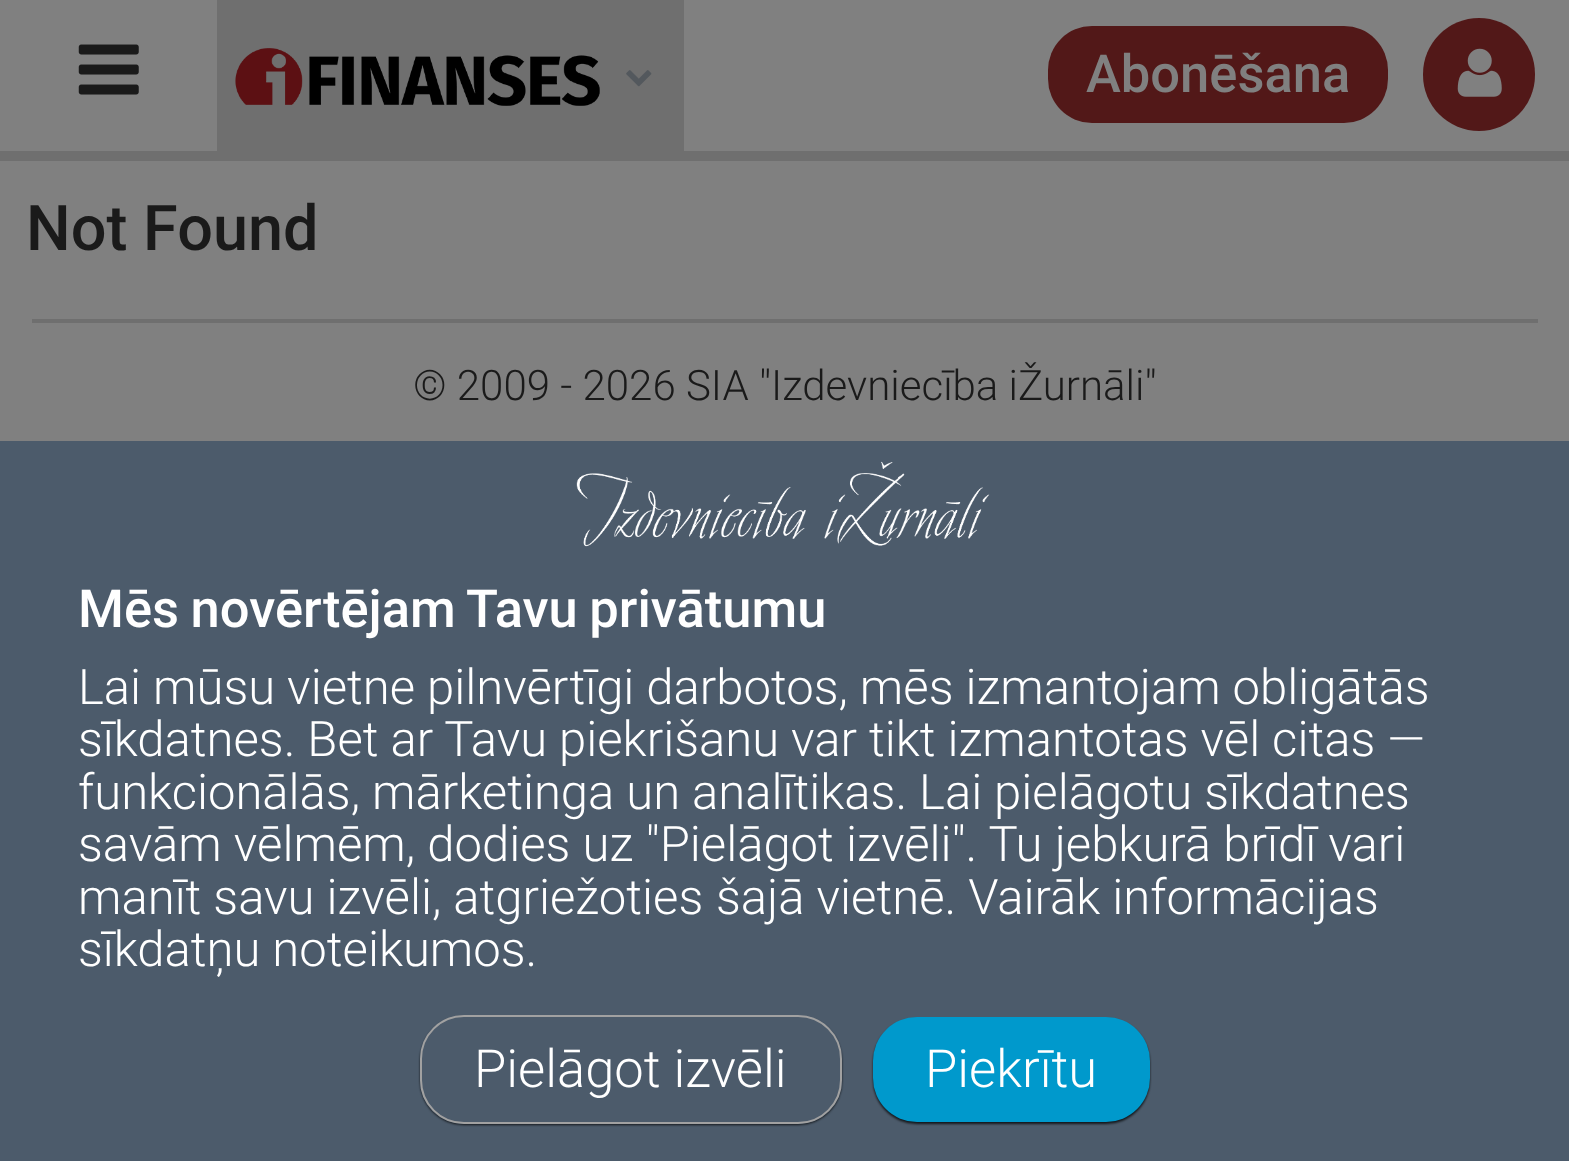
<?xml version="1.0" encoding="UTF-8"?>
<svg xmlns="http://www.w3.org/2000/svg" xmlns:xlink="http://www.w3.org/1999/xlink" width="1569" height="1161">
  <defs>
    <clipPath id="clip1"><path d="M 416 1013 h 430 v 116 h -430 z m 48 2 h 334 c 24.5 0 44 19.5 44 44 v 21 c 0 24.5 -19.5 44 -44 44 h -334 c -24.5 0 -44 -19.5 -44 -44 v -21 c 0 -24.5 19.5 -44 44 -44 z" clip-rule="evenodd" /></clipPath>
  </defs>
  <rect width="100%" height="100%" fill="#808080" />
  <rect y="151" width="1569" height="10" fill="#6f6f6f" />
  <image x="78" y="44" width="61" height="51" xlink:href="image1.png" />
  <rect x="217" width="467" height="151" fill="#6f6f6f" />
  <image x="235" y="48" width="365" height="58" xlink:href="image2.png" />
  <image x="626" y="70" width="26" height="17" xlink:href="image3.png" />
  <rect x="1048" y="26" width="340" height="97" rx="44" fill="#521818" />
  <rect x="1423" y="18" width="112" height="113" rx="56" fill="#521818" />
  <image x="1457" y="48" width="45" height="49" xlink:href="image4.png" />
  <rect x="32" y="319" width="1506" height="4" fill="#6f6f6f" />
  <rect y="441" width="1569" height="720" fill="#4c5b6b" />
  <image x="576" y="461" width="414" height="86" xlink:href="image5.png" />
  <g clip-path="url(#clip1)">
    <rect x="420" y="1017" width="422" height="108" rx="44" fill="#000000" fill-opacity="0.75" filter="blur(1px)" />
  </g>
  <rect x="421" y="1016" width="420" height="107" rx="43" fill="none" stroke="#a1a1a1" stroke-width="2" />
  <rect x="873" y="1019" width="277" height="105" rx="44" fill="#000000" fill-opacity="0.75" filter="blur(1px)" />
  <rect x="873" y="1017" width="277" height="105" rx="44" fill="#0099cc" />
  <text x="1086" y="92" style="font-family: Roboto; font-size: 52.5px; font-weight: 500; fill: #808080">Abonēšana</text>
  <text x="26" y="250" style="font-family: Roboto; font-size: 63px; font-weight: 500; fill: #1a1a1a">Not Found</text>
  <text x="413" y="400" style="font-family: Roboto; font-size: 42px; font-weight: 300; fill: #1a1a1a">© 2009 - 2026 SIA "Izdevniecība iŽurnāli"</text>
  <text x="78" y="627" word-spacing="-1.5" style="font-family: Roboto; font-size: 52.5px; font-weight: 500; fill: #ffffff">Mēs novērtējam Tavu privātumu</text>
  <text x="78" y="704" style="font-family: Roboto; font-size: 49px; font-weight: 300; fill: #ffffff">Lai mūsu vietne pilnvērtīgi darbotos, mēs izmantojam obligātās</text>
  <text x="78" y="756" style="font-family: Roboto; font-size: 49px; font-weight: 300; fill: #ffffff">sīkdatnes. Bet ar Tavu piekrišanu var tikt izmantotas vēl citas —</text>
  <text x="78" y="809" style="font-family: Roboto; font-size: 49px; font-weight: 300; fill: #ffffff">funkcionālās, mārketinga un analītikas. Lai pielāgotu sīkdatnes</text>
  <text x="78" y="861" word-spacing="0.25" style="font-family: Roboto; font-size: 49px; font-weight: 300; fill: #ffffff">savām vēlmēm, dodies uz "Pielāgot izvēli". Tu jebkurā brīdī vari</text>
  <text x="78" y="914" style="font-family: Roboto; font-size: 49px; font-weight: 300; fill: #ffffff">manīt savu izvēli, atgriežoties</text>
  <text x="716" y="914" style="font-family: Roboto; font-size: 49px; font-weight: 300; fill: #ffffff">šajā vietnē. Vairāk informācijas</text>
  <text x="78" y="966" style="font-family: Roboto; font-size: 49px; font-weight: 300; fill: #ffffff">sīkdatņu noteikumos.</text>
  <text x="474" y="1087" style="font-family: Roboto; font-size: 52.5px; font-weight: 300; fill: #ffffff">Pielāgot izvēli</text>
  <text x="925" y="1087" style="font-family: Roboto; font-size: 52.5px; font-weight: 300; fill: #ffffff">Piekrītu</text>
</svg>
